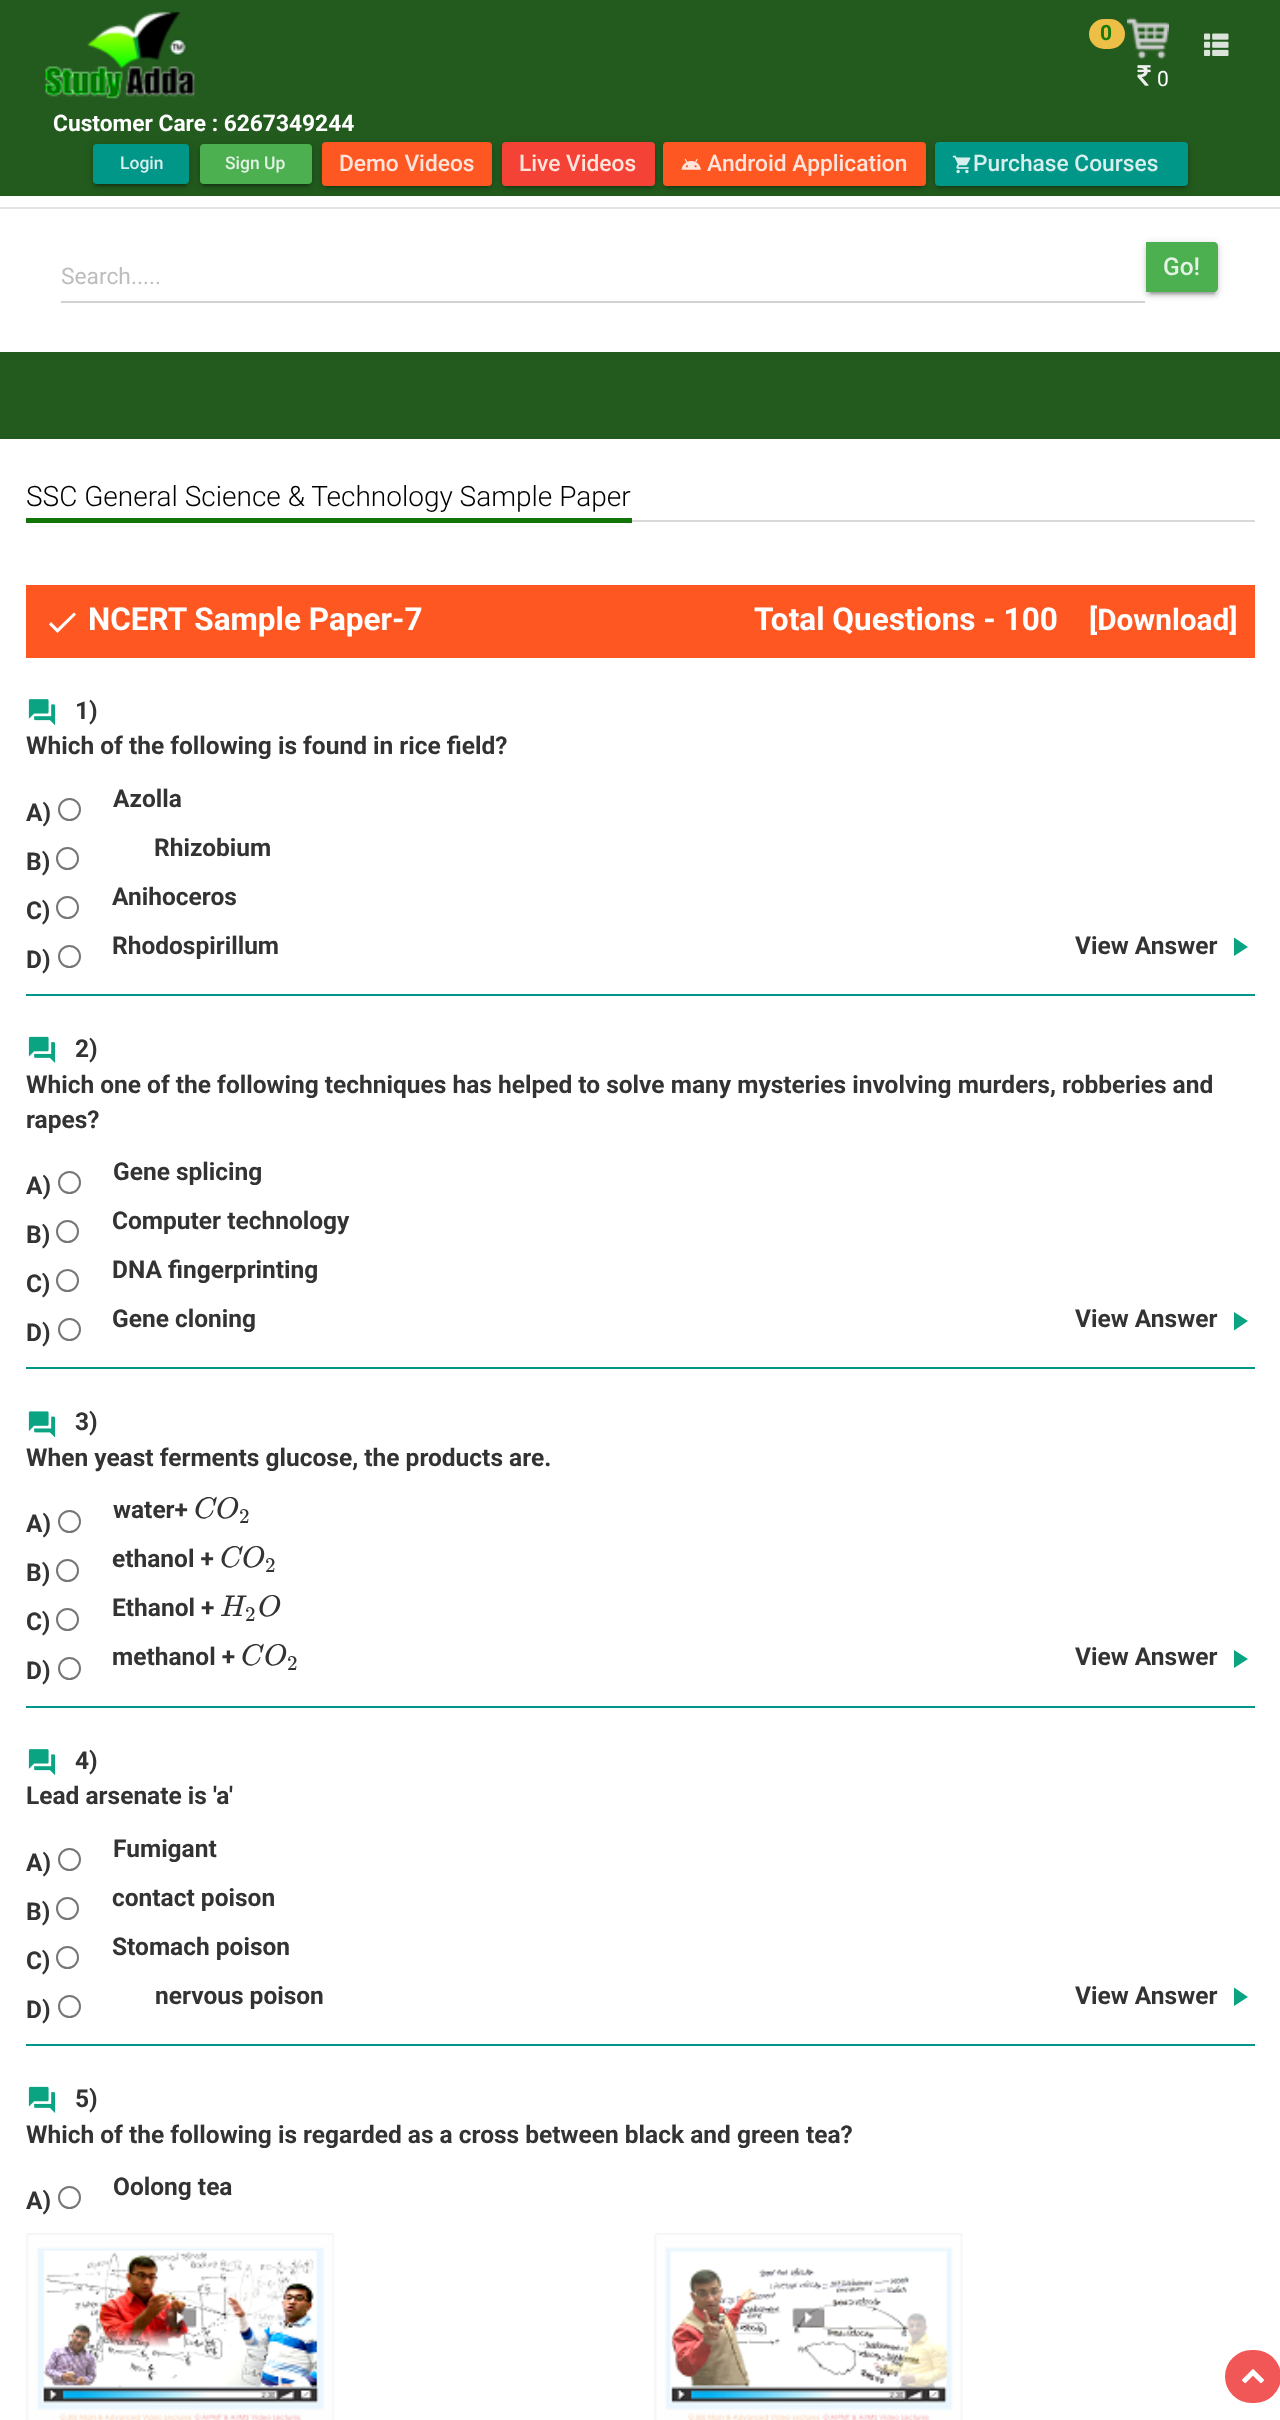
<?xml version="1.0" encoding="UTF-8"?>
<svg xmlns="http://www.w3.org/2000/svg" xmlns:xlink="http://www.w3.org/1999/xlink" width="1280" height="2420">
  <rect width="100%" height="100%" fill="#ffffff" />
  <rect width="1280" height="196" fill="#235b1e" />
  <rect x="1089" y="19" width="36" height="30" rx="15" fill="#edbf47" />
  <image x="1127" y="17" width="42" height="43" xlink:href="image1.png" />
  <image x="1137" y="65" width="14" height="21" xlink:href="image2.png" />
  <image x="1204" y="33" width="25" height="23" xlink:href="image3.png" />
  <image x="45" y="11" width="150" height="88" xlink:href="image4.png" />
  <rect x="93" y="145" width="96" height="41" rx="4" fill="#000000" fill-opacity="0.12" filter="blur(4.5px)" />
  <rect x="96" y="152" width="90" height="34" fill="#000000" fill-opacity="0.2" filter="blur(1px)" />
  <rect x="93" y="147" width="96" height="40" rx="4" fill="#000000" fill-opacity="0.14" filter="blur(2px)" />
  <rect x="93" y="144" width="96" height="40" rx="4" fill="#009688" />
  <rect x="200" y="145" width="112" height="41" rx="4" fill="#000000" fill-opacity="0.12" filter="blur(4.5px)" />
  <rect x="203" y="152" width="105" height="34" fill="#000000" fill-opacity="0.2" filter="blur(1px)" />
  <rect x="200" y="147" width="112" height="40" rx="4" fill="#000000" fill-opacity="0.14" filter="blur(2px)" />
  <rect x="200" y="144" width="112" height="40" rx="4" fill="#4caf50" />
  <rect x="322" y="144" width="170" height="43" rx="4" fill="#000000" fill-opacity="0.12" filter="blur(4.5px)" />
  <rect x="326" y="151" width="162" height="36" fill="#000000" fill-opacity="0.2" filter="blur(1px)" />
  <rect x="322" y="145" width="170" height="44" rx="4" fill="#000000" fill-opacity="0.14" filter="blur(2px)" />
  <rect x="322" y="142" width="170" height="44" rx="4" fill="#ff5722" />
  <rect x="502" y="144" width="153" height="43" rx="4" fill="#000000" fill-opacity="0.12" filter="blur(4.5px)" />
  <rect x="506" y="151" width="145" height="36" fill="#000000" fill-opacity="0.2" filter="blur(1px)" />
  <rect x="502" y="145" width="153" height="44" rx="4" fill="#000000" fill-opacity="0.14" filter="blur(2px)" />
  <rect x="502" y="142" width="153" height="44" rx="4" fill="#f44336" />
  <rect x="663" y="144" width="263" height="43" rx="4" fill="#000000" fill-opacity="0.12" filter="blur(4.5px)" />
  <rect x="667" y="151" width="255" height="36" fill="#000000" fill-opacity="0.2" filter="blur(1px)" />
  <rect x="663" y="145" width="263" height="44" rx="4" fill="#000000" fill-opacity="0.14" filter="blur(2px)" />
  <rect x="663" y="142" width="263" height="44" rx="4" fill="#ff5722" />
  <image x="681" y="158" width="20" height="12" xlink:href="image5.png" />
  <rect x="935" y="144" width="253" height="43" rx="4" fill="#000000" fill-opacity="0.12" filter="blur(4.5px)" />
  <rect x="938" y="151" width="247" height="36" fill="#000000" fill-opacity="0.2" filter="blur(1px)" />
  <rect x="935" y="145" width="253" height="44" rx="4" fill="#000000" fill-opacity="0.14" filter="blur(2px)" />
  <rect x="935" y="142" width="253" height="44" rx="4" fill="#009688" />
  <image x="952" y="155" width="19" height="19" xlink:href="image6.png" />
  <rect y="207" width="1280" height="2" fill="#e3e3e3" />
  <rect x="61" y="301" width="1084" height="2" fill="#d2d2d2" />
  <rect x="1146" y="243" width="72" height="51" rx="4" fill="#000000" fill-opacity="0.12" filter="blur(4.5px)" />
  <rect x="1150" y="250" width="65" height="44" fill="#000000" fill-opacity="0.2" filter="blur(1px)" />
  <rect x="1146" y="245" width="72" height="51" rx="4" fill="#000000" fill-opacity="0.14" filter="blur(2px)" />
  <path d="M 1146 242 h 68 c 2 0 4 2 4 4 v 42 c 0 2 -2 4 -4 4 h -68 z" fill="#4caf50" />
  <rect y="352" width="1280" height="87" fill="#235b1e" />
  <rect x="632" y="520" width="623" height="2" fill="#d9d9d9" />
  <rect x="26" y="518" width="606" height="5" fill="#137407" />
  <rect x="26" y="585" width="1229" height="73" fill="#ff5722" />
  <path d="M 57.5 628.5 l 16.5 -16 l 2 2 l -18.5 18.5 l -8.5 -8.5 l 2 -2.5 z" fill="#ffffff" />
  <rect x="26" y="994" width="1229" height="2" fill="#009688" />
  <image x="28" y="699" width="28" height="27" xlink:href="image7.png" />
  <circle cx="69.5" cy="809.5" r="10.5" fill="none" stroke="#767676" stroke-width="2" />
  <circle cx="67.5" cy="858.5" r="10.5" fill="none" stroke="#767676" stroke-width="2" />
  <circle cx="67.5" cy="907.5" r="10.5" fill="none" stroke="#767676" stroke-width="2" />
  <path d="M 1234 937.5 l 14 9.5 l -14 9 z" fill="#0ba483" />
  <circle cx="69.5" cy="956.5" r="10.5" fill="none" stroke="#767676" stroke-width="2" />
  <rect x="26" y="1367" width="1229" height="2" fill="#009688" />
  <image x="28" y="1036" width="28" height="27" xlink:href="image8.png" />
  <circle cx="69.5" cy="1182.5" r="10.5" fill="none" stroke="#767676" stroke-width="2" />
  <circle cx="67.5" cy="1231.5" r="10.5" fill="none" stroke="#767676" stroke-width="2" />
  <circle cx="67.5" cy="1280.5" r="10.5" fill="none" stroke="#767676" stroke-width="2" />
  <path d="M 1234 1312 l 14 9 l -14 9.5 z" fill="#0ba483" />
  <circle cx="69.5" cy="1329.5" r="10.5" fill="none" stroke="#767676" stroke-width="2" />
  <rect x="26" y="1706" width="1229" height="2" fill="#009688" />
  <image x="28" y="1411" width="28" height="27" xlink:href="image9.png" />
  <circle cx="69.5" cy="1521.5" r="10.5" fill="none" stroke="#767676" stroke-width="2" />
  <circle cx="67.5" cy="1570.5" r="10.5" fill="none" stroke="#767676" stroke-width="2" />
  <circle cx="67.5" cy="1619.5" r="10.5" fill="none" stroke="#767676" stroke-width="2" />
  <path d="M 1234 1650 l 14 9 l -14 9 z" fill="#0ba483" />
  <circle cx="69.5" cy="1668.5" r="10.5" fill="none" stroke="#767676" stroke-width="2" />
  <rect x="26" y="2044" width="1229" height="2" fill="#009688" />
  <image x="28" y="1749" width="28" height="27" xlink:href="image7.png" />
  <circle cx="69.5" cy="1859.5" r="10.5" fill="none" stroke="#767676" stroke-width="2" />
  <circle cx="67.5" cy="1908.5" r="10.5" fill="none" stroke="#767676" stroke-width="2" />
  <circle cx="67.5" cy="1957.5" r="10.5" fill="none" stroke="#767676" stroke-width="2" />
  <path d="M 1234 1987.5 l 14 9.5 l -14 9 z" fill="#0ba483" />
  <circle cx="69.5" cy="2006.5" r="10.5" fill="none" stroke="#767676" stroke-width="2" />
  <image x="28" y="2086" width="28" height="27" xlink:href="image8.png" />
  <circle cx="69.5" cy="2197.5" r="10.5" fill="none" stroke="#767676" stroke-width="2" />
  <image x="26" y="2233" width="308" height="187" xlink:href="image10.png" />
  <image x="654" y="2233" width="309" height="187" xlink:href="image11.png" />
  <rect x="1225" y="2350" width="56" height="53" rx="26.5" fill="#f25758" />
  <image x="1242" y="2369" width="22" height="15" xlink:href="image12.png" />
  <text x="1100" y="40" style="font-family: Roboto; font-size: 21px; font-weight: bold; fill: #187b0b">0</text>
  <text x="1157" y="86" style="font-family: Roboto; font-size: 21px; fill: #ffffff">0</text>
  <text x="53" y="131" style="font-family: Roboto; font-size: 22.75px; font-weight: bold; fill: #ffffff">Customer Care : 6267349244</text>
  <text x="120" y="169" style="font-family: Roboto; font-size: 17.5px; font-weight: 500; fill: #d6eeec">Login</text>
  <text x="225" y="169" style="font-family: Roboto; font-size: 17.5px; font-weight: 500; fill: #e2f2e3">Sign Up</text>
  <text x="339" y="171" style="font-family: Roboto; font-size: 22.75px; font-weight: 500; fill: #ffe4dc">Demo Videos</text>
  <text x="519" y="171" style="font-family: Roboto; font-size: 22.75px; font-weight: 500; fill: #ffe4dc">Live Videos</text>
  <text x="707" y="171" style="font-family: Roboto; font-size: 22.75px; font-weight: 500; fill: #ffe4dc">Android Application</text>
  <text x="973" y="171" style="font-family: Roboto; font-size: 22.75px; font-weight: 500; fill: #d6eeec">Purchase Courses</text>
  <text x="61" y="284" style="font-family: Roboto; font-size: 22.75px; fill: #bdbdbd">Search.....</text>
  <text x="1163" y="275" style="font-family: Roboto; font-size: 24.5px; font-weight: 500; fill: #e2f2e3">Go!</text>
  <text x="26" y="506" style="font-family: Roboto; font-size: 28px; font-weight: 300; fill: #000000">SSC General Science &amp; Technology Sample Paper</text>
  <text x="88" y="630" style="font-family: Roboto; font-size: 31.5px; font-weight: bold; fill: #ffffff">NCERT Sample Paper-7</text>
  <text x="754" y="630" style="font-family: Roboto; font-size: 31.5px; font-weight: bold; fill: #ffffff">Total Questions - 100</text>
  <text x="1089" y="630" style="font-family: Roboto; font-size: 29.75px; font-weight: bold; fill: #ffffff">[Download]</text>
  <text x="75" y="719" style="font-family: Roboto; font-size: 24.5px; font-weight: bold; fill: #333333">1)</text>
  <text x="26" y="754" style="font-family: Roboto; font-size: 24.5px; font-weight: bold; fill: #333333">Which of the following is found in rice field?</text>
  <text x="113" y="807" style="font-family: Roboto; font-size: 24.5px; font-weight: bold; fill: #333333">Azolla</text>
  <text x="26" y="821" style="font-family: Roboto; font-size: 24.5px; font-weight: bold; fill: #333333">A)</text>
  <text x="154" y="856" style="font-family: Roboto; font-size: 24.5px; font-weight: bold; fill: #333333">Rhizobium</text>
  <text x="26" y="870" style="font-family: Roboto; font-size: 24.5px; font-weight: bold; fill: #333333">B)</text>
  <text x="112" y="905" style="font-family: Roboto; font-size: 24.5px; font-weight: bold; fill: #333333">Anihoceros</text>
  <text x="26" y="919" style="font-family: Roboto; font-size: 24.5px; font-weight: bold; fill: #333333">C)</text>
  <text x="112" y="954" style="font-family: Roboto; font-size: 24.5px; font-weight: bold; fill: #333333">Rhodospirillum</text>
  <text x="1075" y="954" style="font-family: Roboto; font-size: 24.5px; font-weight: bold; fill: #333333">View Answer</text>
  <text x="26" y="968" style="font-family: Roboto; font-size: 24.5px; font-weight: bold; fill: #333333">D)</text>
  <text x="75" y="1057" style="font-family: Roboto; font-size: 24.5px; font-weight: bold; fill: #333333">2)</text>
  <text x="26" y="1093" style="font-family: Roboto; font-size: 24.5px; font-weight: bold; fill: #333333">Which one of the following techniques has helped to solve many mysteries involving murders, robberies and</text>
  <text x="26" y="1128" style="font-family: Roboto; font-size: 24.5px; font-weight: bold; fill: #333333">rapes?</text>
  <text x="26" y="1194" style="font-family: Roboto; font-size: 24.5px; font-weight: bold; fill: #333333">A)</text>
  <text x="113" y="1180" style="font-family: Roboto; font-size: 24.5px; font-weight: bold; fill: #333333">Gene splicing</text>
  <text x="26" y="1243" style="font-family: Roboto; font-size: 24.5px; font-weight: bold; fill: #333333">B)</text>
  <text x="112" y="1229" style="font-family: Roboto; font-size: 24.5px; font-weight: bold; fill: #333333">Computer technology</text>
  <text x="26" y="1292" style="font-family: Roboto; font-size: 24.5px; font-weight: bold; fill: #333333">C)</text>
  <text x="112" y="1278" style="font-family: Roboto; font-size: 24.5px; font-weight: bold; fill: #333333">DNA fingerprinting</text>
  <text x="112" y="1327" style="font-family: Roboto; font-size: 24.5px; font-weight: bold; fill: #333333">Gene cloning</text>
  <text x="1075" y="1327" style="font-family: Roboto; font-size: 24.5px; font-weight: bold; fill: #333333">View Answer</text>
  <text x="26" y="1341" style="font-family: Roboto; font-size: 24.5px; font-weight: bold; fill: #333333">D)</text>
  <text x="75" y="1430" style="font-family: Roboto; font-size: 24.5px; font-weight: bold; fill: #333333">3)</text>
  <text x="26" y="1466" style="font-family: Roboto; font-size: 24.5px; font-weight: bold; fill: #333333">When yeast ferments glucose, the products are.</text>
  <text x="26" y="1532" style="font-family: Roboto; font-size: 24.5px; font-weight: bold; fill: #333333">A)</text>
  <text x="113" y="1518" style="font-family: Roboto; font-size: 24.5px; font-weight: bold; fill: #333333">water+</text>
  <text x="194" y="1518" style="font-family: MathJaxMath; font-size: 30px; font-style: italic; fill: #333333">C</text>
  <text x="216" y="1518" style="font-family: MathJaxMath; font-size: 30px; font-style: italic; fill: #333333">O</text>
  <text x="239" y="1523" style="font-family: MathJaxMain; font-size: 21px; fill: #333333">2</text>
  <text x="26" y="1581" style="font-family: Roboto; font-size: 24.5px; font-weight: bold; fill: #333333">B)</text>
  <text x="112" y="1567" style="font-family: Roboto; font-size: 24.5px; font-weight: bold; fill: #333333">ethanol +</text>
  <text x="220" y="1567" style="font-family: MathJaxMath; font-size: 30px; font-style: italic; fill: #333333">C</text>
  <text x="242" y="1567" style="font-family: MathJaxMath; font-size: 30px; font-style: italic; fill: #333333">O</text>
  <text x="265" y="1572" style="font-family: MathJaxMain; font-size: 21px; fill: #333333">2</text>
  <text x="26" y="1630" style="font-family: Roboto; font-size: 24.5px; font-weight: bold; fill: #333333">C)</text>
  <text x="112" y="1616" style="font-family: Roboto; font-size: 24.5px; font-weight: bold; fill: #333333">Ethanol +</text>
  <text x="220" y="1616" style="font-family: MathJaxMath; font-size: 30px; font-style: italic; fill: #333333">H</text>
  <text x="245" y="1621" style="font-family: MathJaxMain; font-size: 21px; fill: #333333">2</text>
  <text x="258" y="1616" style="font-family: MathJaxMath; font-size: 30px; font-style: italic; fill: #333333">O</text>
  <text x="112" y="1665" style="font-family: Roboto; font-size: 24.5px; font-weight: bold; fill: #333333">methanol +</text>
  <text x="241" y="1665" style="font-family: MathJaxMath; font-size: 30px; font-style: italic; fill: #333333">C</text>
  <text x="264" y="1665" style="font-family: MathJaxMath; font-size: 30px; font-style: italic; fill: #333333">O</text>
  <text x="287" y="1670" style="font-family: MathJaxMain; font-size: 21px; fill: #333333">2</text>
  <text x="1075" y="1665" style="font-family: Roboto; font-size: 24.5px; font-weight: bold; fill: #333333">View Answer</text>
  <text x="26" y="1679" style="font-family: Roboto; font-size: 24.5px; font-weight: bold; fill: #333333">D)</text>
  <text x="75" y="1769" style="font-family: Roboto; font-size: 24.5px; font-weight: bold; fill: #333333">4)</text>
  <text x="26" y="1804" style="font-family: Roboto; font-size: 24.5px; font-weight: bold; fill: #333333">Lead arsenate is 'a'</text>
  <text x="26" y="1871" style="font-family: Roboto; font-size: 24.5px; font-weight: bold; fill: #333333">A)</text>
  <text x="113" y="1857" style="font-family: Roboto; font-size: 24.5px; font-weight: bold; fill: #333333">Fumigant</text>
  <text x="26" y="1920" style="font-family: Roboto; font-size: 24.5px; font-weight: bold; fill: #333333">B)</text>
  <text x="112" y="1906" style="font-family: Roboto; font-size: 24.5px; font-weight: bold; fill: #333333">contact poison</text>
  <text x="26" y="1969" style="font-family: Roboto; font-size: 24.5px; font-weight: bold; fill: #333333">C)</text>
  <text x="112" y="1955" style="font-family: Roboto; font-size: 24.5px; font-weight: bold; fill: #333333">Stomach poison</text>
  <text x="155" y="2004" style="font-family: Roboto; font-size: 24.5px; font-weight: bold; fill: #333333">nervous poison</text>
  <text x="1075" y="2004" style="font-family: Roboto; font-size: 24.5px; font-weight: bold; fill: #333333">View Answer</text>
  <text x="26" y="2018" style="font-family: Roboto; font-size: 24.5px; font-weight: bold; fill: #333333">D)</text>
  <text x="75" y="2107" style="font-family: Roboto; font-size: 24.5px; font-weight: bold; fill: #333333">5)</text>
  <text x="26" y="2143" style="font-family: Roboto; font-size: 24.5px; font-weight: bold; fill: #333333">Which of the following is regarded as a cross between black and green tea?</text>
  <text x="26" y="2209" style="font-family: Roboto; font-size: 24.5px; font-weight: bold; fill: #333333">A)</text>
  <text x="113" y="2195" style="font-family: Roboto; font-size: 24.5px; font-weight: bold; fill: #333333">Oolong tea</text>
</svg>
